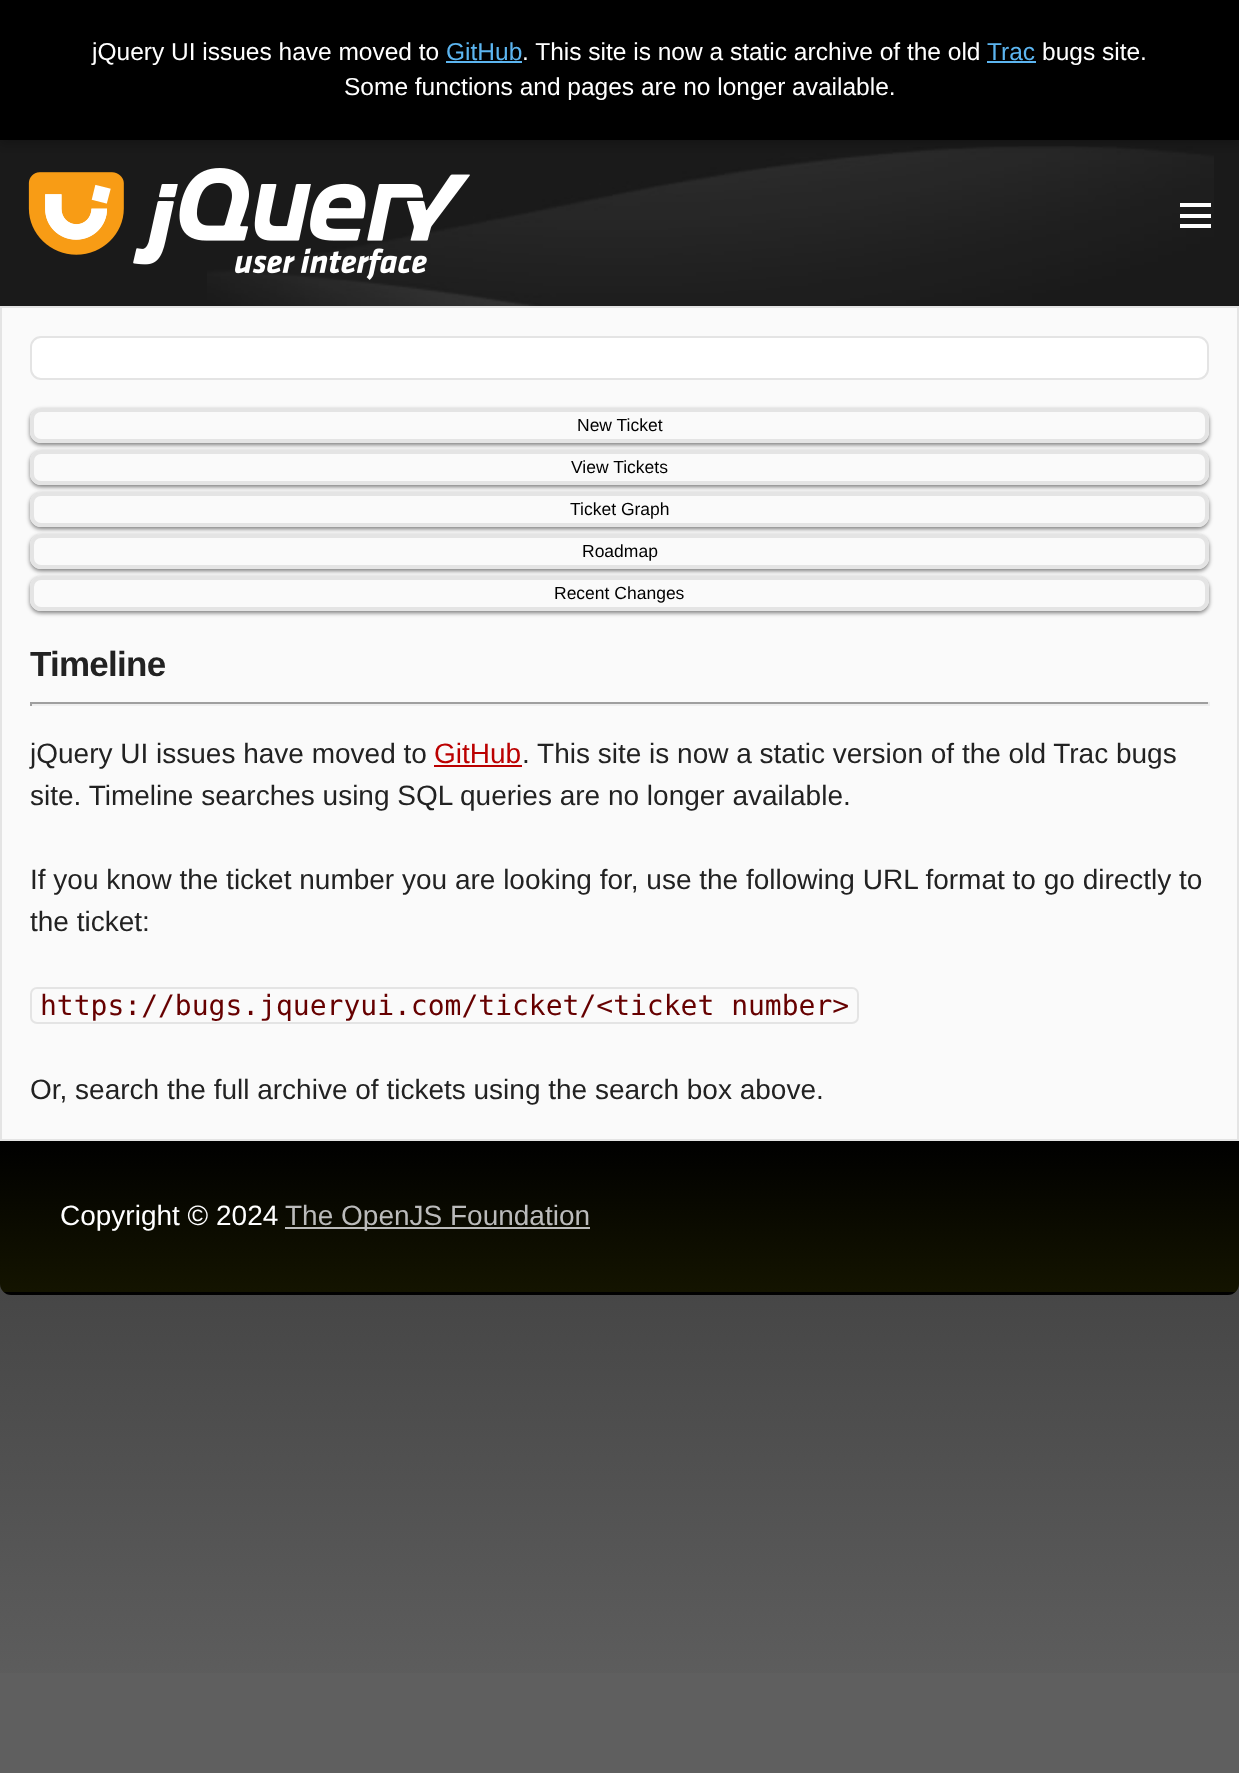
<?xml version="1.0" encoding="UTF-8"?>
<svg xmlns="http://www.w3.org/2000/svg" xmlns:xlink="http://www.w3.org/1999/xlink" width="1239" height="1773">
  <defs>
    <linearGradient id="g1" gradientUnits="userSpaceOnUse" x1="619" y1="140" x2="620" y2="1715"><stop offset="0" stop-color="#1a1a1a" /><stop offset="0.25" stop-color="#1a1a1a" /><stop offset="1" stop-color="#5f5f5f" /></linearGradient>
    <clipPath id="clip1"><path d="M 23 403 h 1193 v 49 h -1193 z m 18 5 h 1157 c 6 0 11 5 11 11 v 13 c 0 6 -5 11 -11 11 h -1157 c -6 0 -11 -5 -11 -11 v -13 c 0 -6 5 -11 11 -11 z" clip-rule="evenodd" /></clipPath>
    <clipPath id="clip2"><path d="M 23 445 h 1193 v 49 h -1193 z m 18 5 h 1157 c 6 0 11 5 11 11 v 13 c 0 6 -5 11 -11 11 h -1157 c -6 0 -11 -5 -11 -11 v -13 c 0 -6 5 -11 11 -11 z" clip-rule="evenodd" /></clipPath>
    <clipPath id="clip3"><path d="M 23 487 h 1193 v 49 h -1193 z m 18 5 h 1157 c 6 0 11 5 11 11 v 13 c 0 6 -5 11 -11 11 h -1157 c -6 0 -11 -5 -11 -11 v -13 c 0 -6 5 -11 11 -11 z" clip-rule="evenodd" /></clipPath>
    <clipPath id="clip4"><path d="M 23 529 h 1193 v 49 h -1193 z m 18 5 h 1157 c 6 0 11 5 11 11 v 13 c 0 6 -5 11 -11 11 h -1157 c -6 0 -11 -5 -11 -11 v -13 c 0 -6 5 -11 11 -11 z" clip-rule="evenodd" /></clipPath>
    <clipPath id="clip5"><path d="M 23 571 h 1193 v 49 h -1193 z m 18 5 h 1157 c 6 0 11 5 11 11 v 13 c 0 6 -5 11 -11 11 h -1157 c -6 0 -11 -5 -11 -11 v -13 c 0 -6 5 -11 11 -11 z" clip-rule="evenodd" /></clipPath>
    <clipPath id="clip6"><path d="M 0 1141 h 1239 v 143 c 0 6 -5 11 -11 11 h -1217 c -6 0 -11 -5 -11 -11 z" /></clipPath>
    <linearGradient id="g2" gradientUnits="userSpaceOnUse" x1="620" y1="1141" x2="620" y2="1292"><stop offset="0" stop-color="#000000" /><stop offset="1" stop-color="#141400" /></linearGradient>
    <linearGradient id="g3" gradientUnits="userSpaceOnUse" x1="620" y1="1292" x2="620" y2="1442"><stop offset="0" stop-color="#000000" /><stop offset="1" stop-color="#141400" /></linearGradient>
  </defs>
  <rect width="100%" height="100%" fill="#5f5f5f" />
  <rect y="140" width="1239" height="1533" fill="url(#g1)" />
  <image x="207" y="146" width="1007" height="160" xlink:href="image1.png" />
  <rect y="4" width="1239" height="140" fill="#000000" fill-opacity="0.2" filter="blur(4.5px)" />
  <rect width="1239" height="140" fill="#000000" />
  <rect x="446" y="61" width="76" height="2" fill="#5cb5f0" />
  <rect x="987" y="61" width="49" height="2" fill="#5cb5f0" />
  <image x="28" y="168" width="442" height="112" xlink:href="image2.png" />
  <rect x="1180" y="203" width="31" height="4" fill="#ffffff" />
  <rect x="1180" y="214" width="31" height="4" fill="#ffffff" />
  <rect x="1180" y="224" width="31" height="4" fill="#ffffff" />
  <rect x="1" y="307" width="1237" height="833" fill="#fafafa" stroke="#e4e4e4" stroke-width="2" />
  <rect x="31" y="337" width="1177" height="42" rx="10" fill="#ffffff" stroke="#e4e4e4" stroke-width="2" />
  <g clip-path="url(#clip1)">
    <rect x="30" y="410" width="1179" height="35" rx="11" fill="#000000" fill-opacity="0.5" filter="blur(2px)" />
  </g>
  <rect x="32" y="410" width="1175" height="31" rx="9" fill="none" stroke="#e4e4e4" stroke-width="4" />
  <g clip-path="url(#clip2)">
    <rect x="30" y="452" width="1179" height="35" rx="11" fill="#000000" fill-opacity="0.5" filter="blur(2px)" />
  </g>
  <rect x="32" y="452" width="1175" height="31" rx="9" fill="none" stroke="#e4e4e4" stroke-width="4" />
  <g clip-path="url(#clip3)">
    <rect x="30" y="494" width="1179" height="35" rx="11" fill="#000000" fill-opacity="0.5" filter="blur(2px)" />
  </g>
  <rect x="32" y="494" width="1175" height="31" rx="9" fill="none" stroke="#e4e4e4" stroke-width="4" />
  <g clip-path="url(#clip4)">
    <rect x="30" y="536" width="1179" height="35" rx="11" fill="#000000" fill-opacity="0.5" filter="blur(2px)" />
  </g>
  <rect x="32" y="536" width="1175" height="31" rx="9" fill="none" stroke="#e4e4e4" stroke-width="4" />
  <g clip-path="url(#clip5)">
    <rect x="30" y="578" width="1179" height="35" rx="11" fill="#000000" fill-opacity="0.5" filter="blur(2px)" />
  </g>
  <rect x="32" y="578" width="1175" height="31" rx="9" fill="none" stroke="#e4e4e4" stroke-width="4" />
  <rect x="30" y="702" width="1179" height="2" fill="#9f9f9f" />
  <rect x="1208" y="702" width="2" height="4" fill="#eeeeee" />
  <rect x="30" y="704" width="1179" height="2" fill="#eeeeee" />
  <rect x="30" y="702" width="2" height="4" fill="#9f9f9f" />
  <rect x="434" y="765" width="88" height="2" fill="#bb0000" />
  <rect x="31" y="988" width="827" height="35" rx="6" fill="none" stroke="#e4e4e4" stroke-width="2" />
  <g clip-path="url(#clip6)">
    <rect y="1141" width="1239" height="151" fill="url(#g2)" />
    <rect y="1292" width="1239" height="3" fill="url(#g3)" />
  </g>
  <rect x="285" y="1227" width="305" height="2" fill="#bbbbbb" />
  <text x="92" y="60" style="font-family: Liberation Sans; font-size: 24.5px; fill: #ffffff">jQuery UI issues have moved to</text>
  <text x="446" y="60" style="font-family: Liberation Sans; font-size: 24.5px; fill: #5cb5f0">GitHub</text>
  <text x="522" y="60" style="font-family: Liberation Sans; font-size: 24.5px; fill: #ffffff">. This site is now a static archive of the old</text>
  <text x="987" y="60" style="font-family: Liberation Sans; font-size: 24.5px; fill: #5cb5f0">Trac</text>
  <text x="1042" y="60" style="font-family: Liberation Sans; font-size: 24.5px; fill: #ffffff">bugs site.</text>
  <text x="344" y="95" style="font-family: Liberation Sans; font-size: 24.5px; fill: #ffffff">Some functions and pages are no longer available.</text>
  <text x="577" y="431" style="font-family: Liberation Sans; font-size: 17.5px; fill: #000000">New Ticket</text>
  <text x="571" y="473" style="font-family: Liberation Sans; font-size: 17.5px; fill: #000000">View Tickets</text>
  <text x="570" y="515" style="font-family: Liberation Sans; font-size: 17.5px; fill: #000000">Ticket Graph</text>
  <text x="582" y="557" style="font-family: Liberation Sans; font-size: 17.5px; fill: #000000">Roadmap</text>
  <text x="554" y="599" style="font-family: Liberation Sans; font-size: 17.5px; fill: #000000">Recent Changes</text>
  <text x="30" y="676" style="font-family: Liberation Sans; font-size: 35px; font-weight: bold; letter-spacing: -0.75px; fill: #222222">Timeline</text>
  <text x="30" y="763" style="font-family: Liberation Sans; font-size: 28px; fill: #222222">jQuery UI issues have moved to</text>
  <text x="434" y="763" style="font-family: Liberation Sans; font-size: 28px; fill: #bb0000">GitHub</text>
  <text x="522" y="763" style="font-family: Liberation Sans; font-size: 28px; fill: #222222">. This site is now a static version of the old Trac bugs</text>
  <text x="30" y="805" style="font-family: Liberation Sans; font-size: 28px; fill: #222222">site. Timeline searches using SQL queries are no longer available.</text>
  <text x="30" y="889" style="font-family: Liberation Sans; font-size: 28px; fill: #222222">If you know the ticket number you are looking for, use the following URL format to go directly to</text>
  <text x="30" y="931" style="font-family: Liberation Sans; font-size: 28px; fill: #222222">the ticket:</text>
  <text x="40" y="1015" style="font-family: DejaVu Sans Mono; font-size: 28px; fill: #660000">https://bugs.jqueryui.com/ticket/&lt;ticket number&gt;</text>
  <text x="30" y="1099" style="font-family: Liberation Sans; font-size: 28px; fill: #222222">Or, search the full archive of tickets using the search box above.</text>
  <text x="60" y="1225" style="font-family: Liberation Sans; font-size: 28px; fill: #ffffff">Copyright © 2024</text>
  <text x="285" y="1225" style="font-family: Liberation Sans; font-size: 28px; fill: #bbbbbb">The OpenJS Foundation</text>
</svg>
